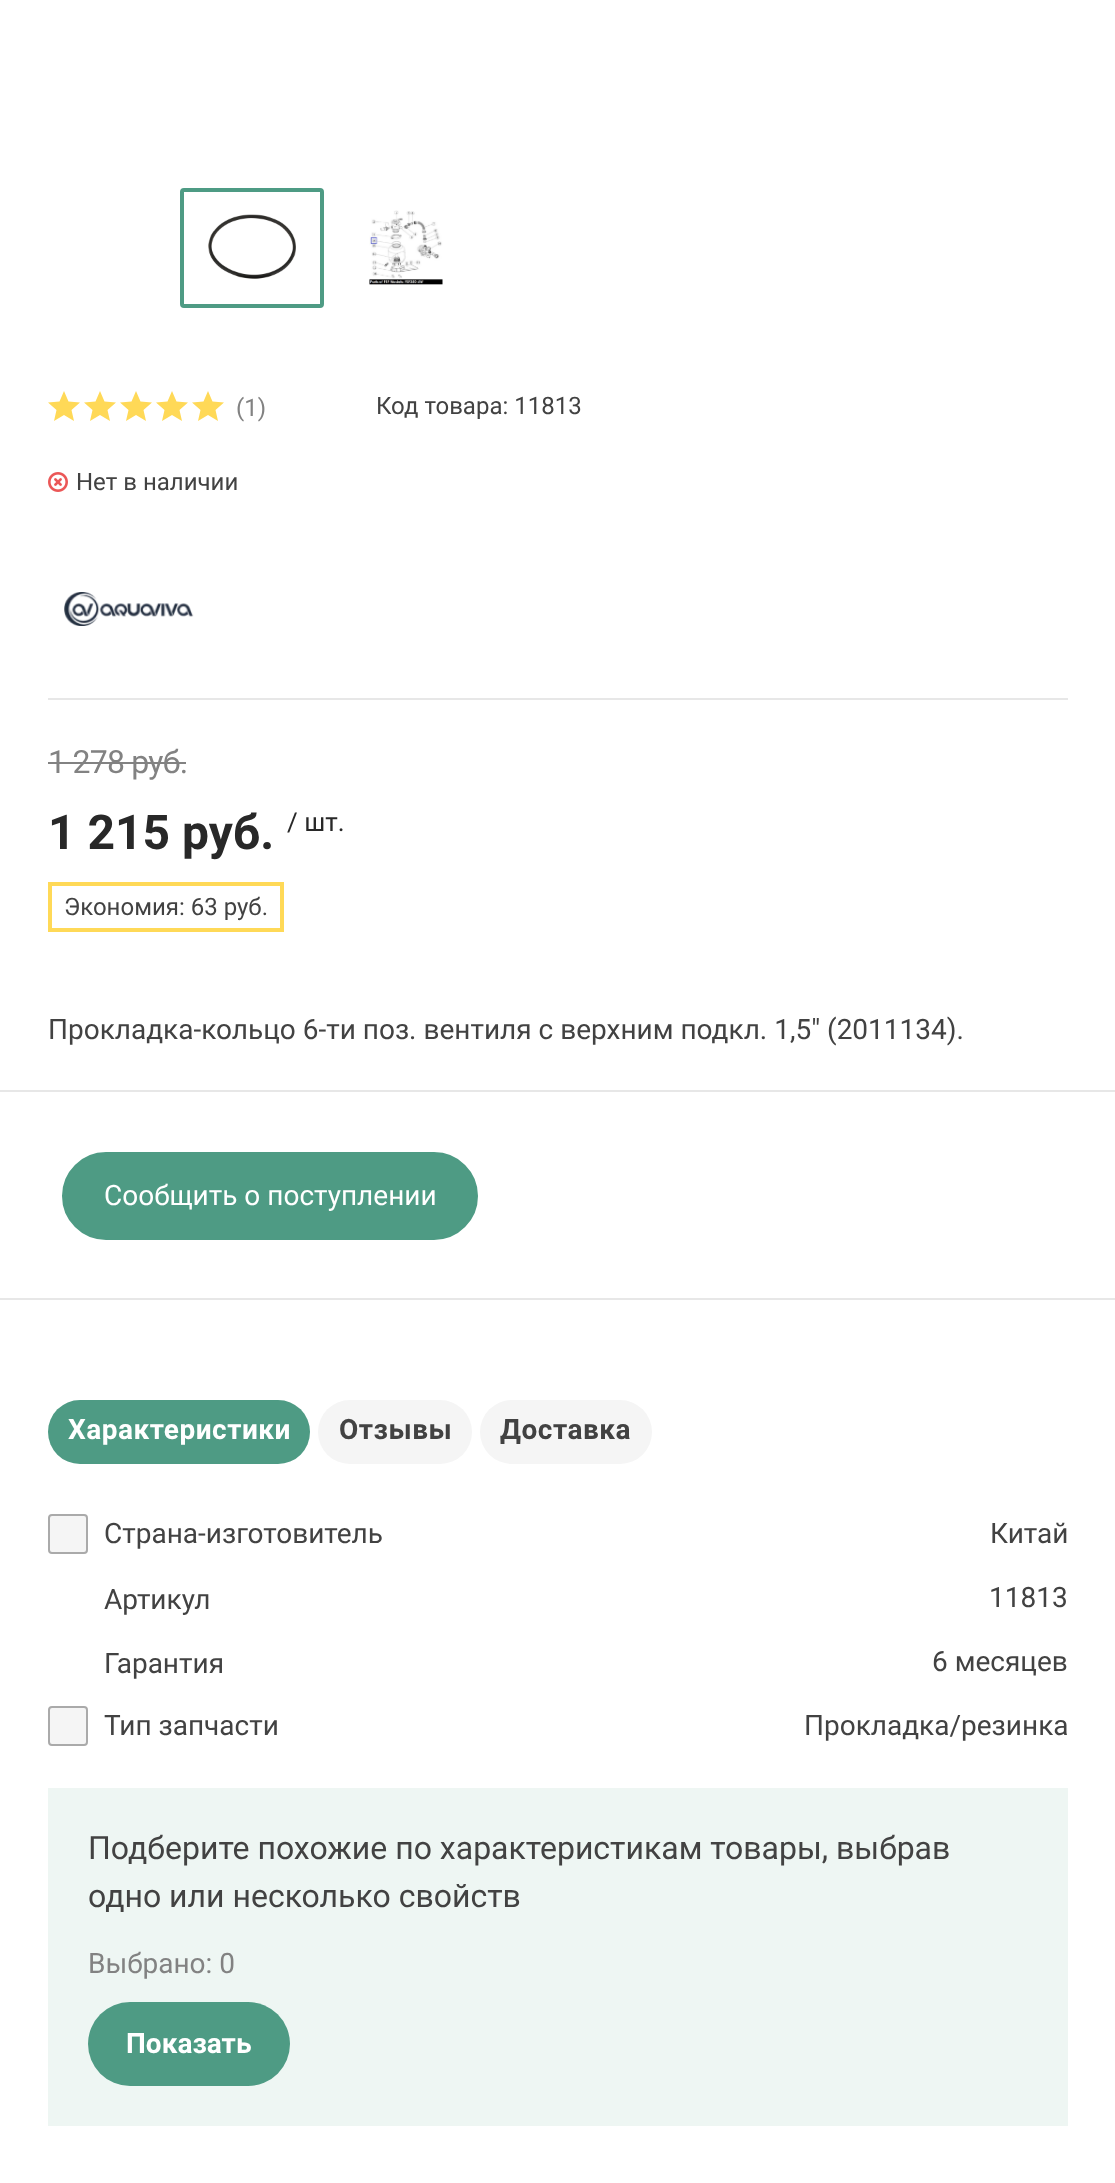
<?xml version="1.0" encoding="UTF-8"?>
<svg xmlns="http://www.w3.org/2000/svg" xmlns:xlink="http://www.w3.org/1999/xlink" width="1115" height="2183">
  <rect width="100%" height="100%" fill="#ffffff" />
  <image x="208" y="214" width="88" height="65" xlink:href="image1.png" />
  <rect x="182" y="190" width="140" height="116" rx="2" fill="none" stroke="#4e9b84" stroke-width="4" />
  <image x="369" y="210" width="74" height="75" xlink:href="image2.png" />
  <rect x="48" y="698" width="1020" height="2" fill="#e7e7e7" />
  <path d="M 74 421 l -10 -6 l -10 6 l 2.5 -11 l -8.5 -7.5 l 11.5 -1 l 4.5 -10.5 l 4.5 10.5 l 11.5 1 l -8.5 7.5 z" fill="#ffd957" />
  <path d="M 110 421 l -10 -6 l -10 6 l 2.5 -11 l -8.5 -7.5 l 11.5 -1 l 4.5 -10.5 l 4.5 10.5 l 11.5 1 l -8.5 7.5 z" fill="#ffd957" />
  <path d="M 146 421 l -10 -6 l -10 6 l 2.5 -11 l -8.5 -7.5 l 11.5 -1 l 4.5 -10.5 l 4.5 10.5 l 11.5 1 l -8.5 7.5 z" fill="#ffd957" />
  <path d="M 182 421 l -10 -6 l -10 6 l 2.5 -11 l -8.5 -7.5 l 11.5 -1 l 4.5 -10.5 l 4.5 10.5 l 11.5 1 l -8.5 7.5 z" fill="#ffd957" />
  <path d="M 218 421 l -10 -6 l -10 6 l 2.5 -11 l -8.5 -7.5 l 11.5 -1 l 4.5 -10.5 l 4.5 10.5 l 11.5 1 l -8.5 7.5 z" fill="#ffd957" />
  <image x="48" y="472" width="20" height="20" xlink:href="image3.png" />
  <image x="64" y="592" width="130" height="34" xlink:href="image4.png" />
  <rect x="48" y="762" width="138" height="2" fill="#828282" />
  <rect x="50" y="884" width="232" height="46" fill="none" stroke="#ffd957" stroke-width="4" />
  <rect y="1090" width="1115" height="2" fill="#e7e7e7" />
  <rect y="1298" width="1115" height="2" fill="#e7e7e7" />
  <rect x="63" y="1153" width="414" height="86" rx="43" fill="#4e9b84" stroke="#4e9b84" stroke-width="2" />
  <rect x="48" y="1400" width="262" height="64" rx="32" fill="#4e9b84" />
  <rect x="318" y="1400" width="154" height="64" rx="32" fill="#f5f5f5" />
  <rect x="480" y="1400" width="172" height="64" rx="32" fill="#f5f5f5" />
  <rect x="49" y="1515" width="38" height="38" rx="3" fill="#f5f5f5" stroke="#aaaaaa" stroke-width="2" />
  <rect x="49" y="1707" width="38" height="38" rx="3" fill="#f5f5f5" stroke="#aaaaaa" stroke-width="2" />
  <rect x="48" y="1788" width="1020" height="338" fill="#eef6f3" />
  <rect x="88" y="2002" width="202" height="84" rx="42" fill="#4e9b84" />
  <text x="236" y="416" style="font-family: Roboto; font-size: 24px; fill: #828282">(1)</text>
  <text x="376" y="414" style="font-family: Roboto; font-size: 24px; fill: #424242">Код товара: 11813</text>
  <text x="76" y="490" style="font-family: Roboto; font-size: 24px; fill: #424242">Нет в наличии</text>
  <text x="48" y="773" style="font-family: Roboto; font-size: 32px; letter-spacing: -0.75px; fill: #828282">1 278 руб.</text>
  <text x="48" y="849" style="font-family: Roboto; font-size: 48px; font-weight: bold; fill: #282828">1 215 руб.</text>
  <text x="287" y="831" style="font-family: Roboto; font-size: 26px; fill: #282828">/ шт.</text>
  <text x="64" y="915" style="font-family: Roboto; font-size: 24px; fill: #424242">Экономия: 63 руб.</text>
  <text x="48" y="1039" style="font-family: Roboto; font-size: 28px; fill: #424242">Прокладка-кольцо 6-ти поз. вентиля с верхним подкл. 1,5" (2011134).</text>
  <text x="104" y="1205" style="font-family: Roboto; font-size: 28px; fill: #ffffff">Сообщить о поступлении</text>
  <text x="68" y="1439" style="font-family: Roboto; font-size: 28px; font-weight: bold; letter-spacing: 0.5px; fill: #ffffff">Характеристики</text>
  <text x="339" y="1439" style="font-family: Roboto; font-size: 28px; font-weight: bold; letter-spacing: 0.5px; fill: #424242">Отзывы</text>
  <text x="500" y="1439" style="font-family: Roboto; font-size: 28px; font-weight: bold; letter-spacing: 0.5px; fill: #424242">Доставка</text>
  <text x="104" y="1543" style="font-family: Roboto; font-size: 28px; fill: #424242">Страна-изготовитель</text>
  <text x="990" y="1543" style="font-family: Roboto; font-size: 28px; fill: #424242">Китай</text>
  <text x="104" y="1609" style="font-family: Roboto; font-size: 28px; fill: #424242">Артикул</text>
  <text x="989" y="1607" style="font-family: Roboto; font-size: 28px; fill: #424242">11813</text>
  <text x="104" y="1673" style="font-family: Roboto; font-size: 28px; fill: #424242">Гарантия</text>
  <text x="932" y="1671" style="font-family: Roboto; font-size: 28px; fill: #424242">6 месяцев</text>
  <text x="104" y="1735" style="font-family: Roboto; font-size: 28px; fill: #424242">Тип запчасти</text>
  <text x="804" y="1735" style="font-family: Roboto; font-size: 28px; fill: #424242">Прокладка/резинка</text>
  <text x="88" y="1859" style="font-family: Roboto; font-size: 32px; fill: #424242">Подберите похожие по характеристикам товары, выбрав</text>
  <text x="88" y="1907" style="font-family: Roboto; font-size: 32px; fill: #424242">одно или несколько свойств</text>
  <text x="88" y="1973" style="font-family: Roboto; font-size: 28px; fill: #828282">Выбрано: 0</text>
  <text x="126" y="2053" style="font-family: Roboto; font-size: 28px; font-weight: bold; fill: #ffffff">Показать</text>
</svg>
